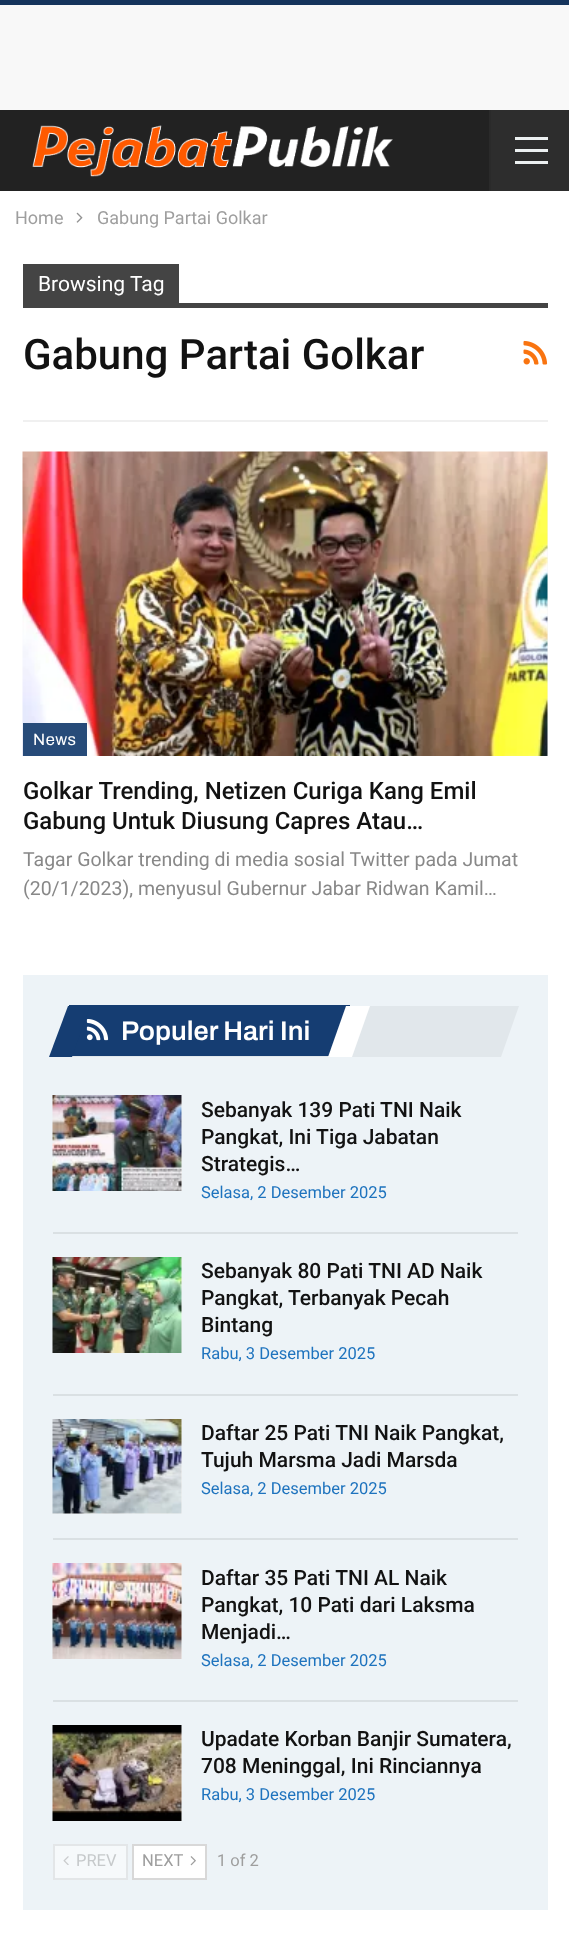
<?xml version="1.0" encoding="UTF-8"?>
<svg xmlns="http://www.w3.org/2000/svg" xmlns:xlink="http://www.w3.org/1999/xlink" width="569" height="1936">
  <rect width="100%" height="100%" fill="#15345c" />
  <rect y="5" width="569" height="105" fill="#f8f8f8" />
  <rect y="191" width="569" height="1745" fill="#ffffff" />
  <rect y="110" width="489" height="81" fill="#222222" />
  <image x="32" y="125" width="361" height="52" xlink:href="image1.png" />
  <rect x="491" y="110" width="78" height="81" fill="#2d2d2d" />
  <rect x="489" y="110" width="2" height="81" fill="#2a2a2a" />
  <rect x="515" y="149" width="33" height="3" fill="#ecf0f1" />
  <rect x="515" y="137" width="33" height="3" fill="#ecf0f1" />
  <rect x="515" y="161" width="33" height="3" fill="#ecf0f1" />
  <image x="76" y="212" width="7" height="11" xlink:href="image2.png" />
  <rect x="23" y="420" width="525" height="2" fill="#f0f0f0" />
  <rect x="23" y="264" width="156" height="39" fill="#444444" />
  <rect x="23" y="303" width="525" height="5" fill="#444444" />
  <image x="523" y="340" width="25" height="25" xlink:href="image3.png" />
  <rect x="547" y="452" width="1" height="304" fill="#f5f5f5" />
  <image x="22" y="451" width="526" height="305" xlink:href="image4.png" />
  <rect x="23" y="723" width="64" height="33" fill="#274b79" />
  <rect x="23" y="975" width="525" height="935" fill="#edf3f7" />
  <path d="M 69 1006 h 450 l -18 51 h -450 z" fill="#e1e7eb" />
  <rect x="69" y="1005" width="281" height="51" fill="#153d72" />
  <image x="86" y="1019" width="23" height="22" xlink:href="image5.png" />
  <path d="M 68 1006 h 22 l -18 51 h -23 z" fill="#153d72" />
  <path d="M 346 1006 h 24 l -18 51 h -24 z" fill="#ffffff" />
  <rect x="53" y="1232" width="465" height="2" fill="#dae0e3" />
  <rect x="181" y="1095" width="1" height="96" fill="#f5f5f5" />
  <image x="52" y="1095" width="130" height="96" xlink:href="image6.png" />
  <rect x="53" y="1394" width="465" height="2" fill="#dae0e3" />
  <rect x="181" y="1257" width="1" height="96" fill="#f5f5f5" />
  <image x="52" y="1257" width="130" height="96" xlink:href="image7.png" />
  <rect x="53" y="1538" width="465" height="2" fill="#dae0e3" />
  <rect x="53" y="1419" width="129" height="95" fill="#f5f5f5" />
  <image x="52" y="1419" width="130" height="95" xlink:href="image8.png" />
  <rect x="53" y="1700" width="465" height="2" fill="#dae0e3" />
  <rect x="181" y="1563" width="1" height="96" fill="#f5f5f5" />
  <image x="52" y="1563" width="130" height="96" xlink:href="image9.png" />
  <rect x="181" y="1725" width="1" height="96" fill="#f5f5f5" />
  <image x="52" y="1725" width="130" height="96" xlink:href="image10.png" />
  <rect x="54" y="1845" width="73" height="34" fill="#f6f9fb" stroke="#e3e6e8" stroke-width="2" />
  <image x="63" y="1856" width="6" height="9" xlink:href="image11.png" />
  <rect x="133" y="1845" width="73" height="34" fill="#ffffff" stroke="#d8d8d8" stroke-width="2" />
  <image x="190" y="1856" width="6" height="10" xlink:href="image12.png" />
  <text x="15" y="224" style="font-family: Roboto; font-size: 18px; fill: #9e9e9e">Home</text>
  <text x="97" y="224" style="font-family: Roboto; font-size: 18px; fill: #9e9e9e">Gabung Partai Golkar</text>
  <text x="38" y="291" style="font-family: Roboto; font-size: 21px; fill: #ffffff">Browsing Tag</text>
  <text x="23" y="369" style="font-family: Roboto; font-size: 42px; font-weight: 500; fill: #121212">Gabung Partai Golkar</text>
  <text x="33" y="745" style="font-family: Archivo; font-size: 16.5px; letter-spacing: 0.5px; fill: #ffffff">News</text>
  <text x="23" y="799" style="font-family: Roboto; font-size: 24px; font-weight: 500; fill: #121212">Golkar Trending, Netizen Curiga Kang Emil</text>
  <text x="23" y="829" style="font-family: Roboto; font-size: 24px; font-weight: 500; fill: #121212">Gabung Untuk Diusung Capres Atau…</text>
  <text x="23" y="866" style="font-family: Roboto; font-size: 19.5px; fill: #888888">Tagar Golkar trending di media sosial Twitter pada Jumat</text>
  <text x="23" y="895" style="font-family: Roboto; font-size: 19.5px; fill: #888888">(20/1/2023), menyusul Gubernur Jabar Ridwan Kamil…</text>
  <text x="121" y="1040" style="font-family: Archivo; font-size: 27px; font-weight: 600; fill: #ffffff">Populer Hari Ini</text>
  <text x="201" y="1117" style="font-family: Roboto; font-size: 21px; font-weight: 500; fill: #121212">Sebanyak 139 Pati TNI Naik</text>
  <text x="201" y="1144" style="font-family: Roboto; font-size: 21px; font-weight: 500; fill: #121212">Pangkat, Ini Tiga Jabatan</text>
  <text x="201" y="1171" style="font-family: Roboto; font-size: 21px; font-weight: 500; fill: #121212">Strategis…</text>
  <text x="201" y="1198" style="font-family: Roboto; font-size: 16.5px; fill: #1e73be">Selasa, 2 Desember 2025</text>
  <text x="201" y="1278" style="font-family: Roboto; font-size: 21px; font-weight: 500; fill: #121212">Sebanyak 80 Pati TNI AD Naik</text>
  <text x="201" y="1305" style="font-family: Roboto; font-size: 21px; font-weight: 500; fill: #121212">Pangkat, Terbanyak Pecah</text>
  <text x="201" y="1332" style="font-family: Roboto; font-size: 21px; font-weight: 500; fill: #121212">Bintang</text>
  <text x="201" y="1359" style="font-family: Roboto; font-size: 16.5px; fill: #1e73be">Rabu, 3 Desember 2025</text>
  <text x="201" y="1440" style="font-family: Roboto; font-size: 21px; font-weight: 500; fill: #121212">Daftar 25 Pati TNI Naik Pangkat,</text>
  <text x="201" y="1467" style="font-family: Roboto; font-size: 21px; font-weight: 500; fill: #121212">Tujuh Marsma Jadi Marsda</text>
  <text x="201" y="1494" style="font-family: Roboto; font-size: 16.5px; fill: #1e73be">Selasa, 2 Desember 2025</text>
  <text x="201" y="1585" style="font-family: Roboto; font-size: 21px; font-weight: 500; fill: #121212">Daftar 35 Pati TNI AL Naik</text>
  <text x="201" y="1612" style="font-family: Roboto; font-size: 21px; font-weight: 500; fill: #121212">Pangkat, 10 Pati dari Laksma</text>
  <text x="201" y="1639" style="font-family: Roboto; font-size: 21px; font-weight: 500; fill: #121212">Menjadi…</text>
  <text x="201" y="1666" style="font-family: Roboto; font-size: 16.5px; fill: #1e73be">Selasa, 2 Desember 2025</text>
  <text x="201" y="1746" style="font-family: Roboto; font-size: 21px; font-weight: 500; fill: #121212">Upadate Korban Banjir Sumatera,</text>
  <text x="201" y="1773" style="font-family: Roboto; font-size: 21px; font-weight: 500; fill: #121212">708 Meninggal, Ini Rinciannya</text>
  <text x="201" y="1800" style="font-family: Roboto; font-size: 16.5px; fill: #1e73be">Rabu, 3 Desember 2025</text>
  <text x="76" y="1866" style="font-family: Roboto; font-size: 16.5px; fill: #c6c9cb">PREV</text>
  <text x="142" y="1866" style="font-family: Roboto; font-size: 16.5px; fill: #9e9e9e">NEXT</text>
  <text x="217" y="1866" style="font-family: Roboto; font-size: 16.5px; fill: #9e9e9e">1 of 2</text>
</svg>
